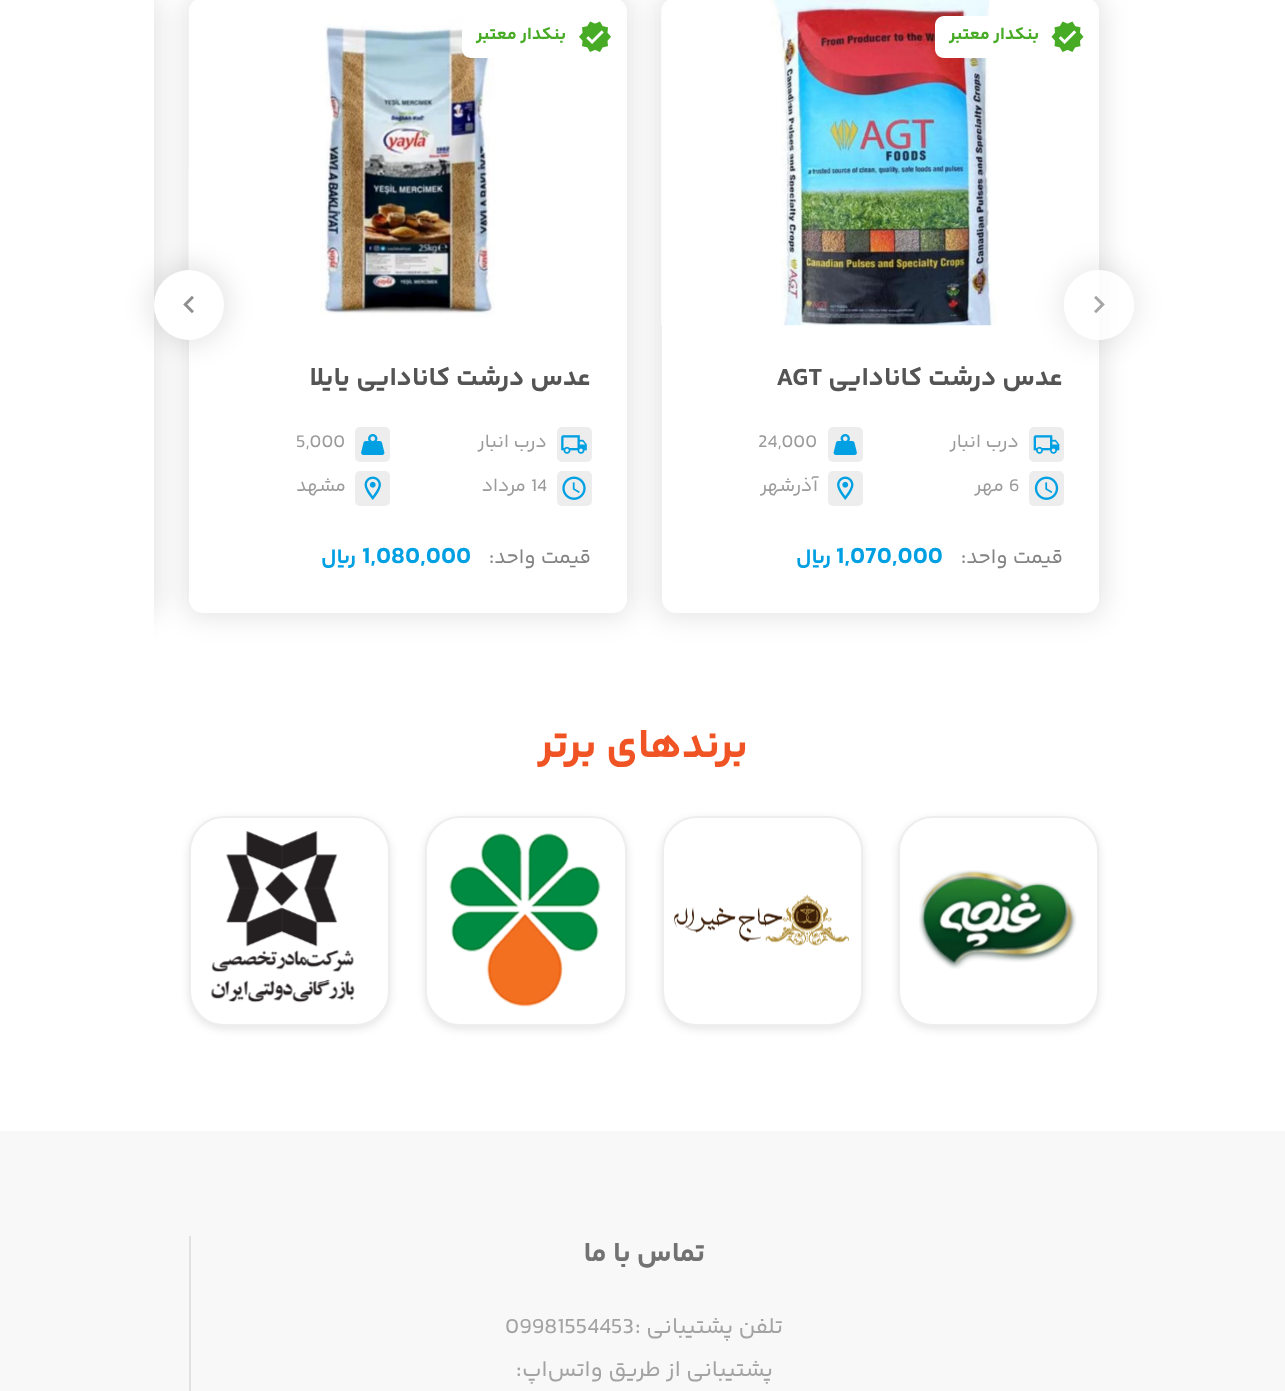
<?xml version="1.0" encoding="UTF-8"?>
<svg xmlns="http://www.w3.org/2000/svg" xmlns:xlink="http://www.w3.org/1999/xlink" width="1285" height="1391">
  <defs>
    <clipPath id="clip1"><path d="M 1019 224 h 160 v 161 h -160 z m 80 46 c 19.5 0 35 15.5 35 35 c 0 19.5 -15.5 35 -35 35 c -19.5 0 -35 -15.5 -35 -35 c 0 -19.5 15.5 -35 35 -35 z" clip-rule="evenodd" /></clipPath>
    <clipPath id="clip2"><rect x="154" y="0" width="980" height="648" /></clipPath>
  </defs>
  <rect width="100%" height="100%" fill="#ffffff" />
  <rect x="656" y="-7" width="448" height="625" rx="19" fill="#000000" fill-opacity="0.1" filter="blur(13px)" />
  <rect x="662" y="-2" width="437" height="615" rx="14" fill="#ffffff" />
  <g clip-path="url(#clip1)">
    <rect x="1059" y="264" width="80" height="81" rx="40" fill="#000000" fill-opacity="0.08" filter="blur(13px)" />
  </g>
  <circle cx="1099" cy="305" r="35" fill="#ffffff" fill-opacity="0.8" />
  <image x="1094" y="295" width="11" height="19" xlink:href="image1.png" />
  <image x="661" y="0" width="336" height="326" xlink:href="image2.png" />
  <path d="M 944 16 h 155 v 42 h -155 c -5 0 -9 -4 -9 -9 v -24 c 0 -5 4 -9 9 -9 z" fill="#ffffff" />
  <image x="1051" y="21" width="33" height="31" xlink:href="image3.png" />
  <rect x="1029" y="427" width="35" height="35" rx="5" fill="#ededed" />
  <image x="1033" y="435" width="27" height="19" xlink:href="image4.png" />
  <rect x="828" y="427" width="35" height="35" rx="5" fill="#ededed" />
  <image x="833" y="434" width="24" height="21" xlink:href="image5.png" />
  <rect x="1029" y="471" width="35" height="35" rx="5" fill="#ededed" />
  <image x="1034" y="476" width="25" height="24" xlink:href="image6.png" />
  <rect x="828" y="471" width="35" height="35" rx="5" fill="#ededed" />
  <image x="837" y="476" width="17" height="24" xlink:href="image7.png" />
  <rect x="184" y="-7" width="448" height="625" rx="19" fill="#000000" fill-opacity="0.1" filter="blur(13px)" />
  <rect x="189" y="-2" width="438" height="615" rx="14" fill="#ffffff" />
  <image x="188" y="0" width="307" height="325" xlink:href="image9.png" />
  <path d="M 471 16 h 156 v 42 h -156 c -5 0 -9 -4 -9 -9 v -24 c 0 -5 4 -9 9 -9 z" fill="#ffffff" />
  <image x="579" y="21" width="32" height="31" xlink:href="image8.png" />
  <rect x="557" y="427" width="35" height="35" rx="5" fill="#ededed" />
  <image x="561" y="435" width="26" height="19" xlink:href="image10.png" />
  <rect x="355" y="427" width="35" height="35" rx="5" fill="#ededed" />
  <image x="361" y="434" width="24" height="21" xlink:href="image11.png" />
  <rect x="557" y="471" width="35" height="35" rx="5" fill="#ededed" />
  <image x="562" y="476" width="24" height="24" xlink:href="image12.png" />
  <rect x="355" y="471" width="35" height="35" rx="5" fill="#ededed" />
  <image x="364" y="476" width="17" height="24" xlink:href="image13.png" />
  <g clip-path="url(#clip2)">
    <rect x="-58" y="-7" width="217" height="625" rx="19" fill="#000000" fill-opacity="0.1" filter="blur(13px)" />
  </g>
  <rect x="149" y="264" width="80" height="81" rx="40" fill="#000000" fill-opacity="0.1" filter="blur(13px)" />
  <circle cx="189" cy="305" r="35" fill="#ffffff" />
  <image x="183" y="295" width="11" height="19" xlink:href="image14.png" />
  <rect x="898" y="819" width="201" height="210" rx="35" fill="#000000" fill-opacity="0.1" filter="blur(4.5px)" />
  <rect x="899" y="817" width="199" height="208" rx="34" fill="#ffffff" stroke="#eeeeee" stroke-width="2" />
  <image x="919" y="870" width="158" height="99" xlink:href="image15.png" />
  <rect x="662" y="819" width="201" height="210" rx="35" fill="#000000" fill-opacity="0.1" filter="blur(4.5px)" />
  <rect x="663" y="817" width="199" height="208" rx="34" fill="#ffffff" stroke="#eeeeee" stroke-width="2" />
  <image x="674" y="894" width="175" height="52" xlink:href="image16.png" />
  <rect x="425" y="819" width="202" height="210" rx="35" fill="#000000" fill-opacity="0.1" filter="blur(4.5px)" />
  <rect x="426" y="817" width="200" height="208" rx="34" fill="#ffffff" stroke="#eeeeee" stroke-width="2" />
  <image x="449" y="833" width="152" height="174" xlink:href="image17.png" />
  <rect x="189" y="819" width="201" height="210" rx="35" fill="#000000" fill-opacity="0.1" filter="blur(4.5px)" />
  <rect x="190" y="817" width="199" height="208" rx="34" fill="#ffffff" stroke="#eeeeee" stroke-width="2" />
  <image x="210" y="831" width="145" height="172" xlink:href="image18.png" />
  <rect y="1131" width="1285" height="260" fill="#f8f8f8" />
  <rect x="189" y="1236" width="2" height="155" fill="#e1e1e1" />
  <text x="1039" y="39" style="font-family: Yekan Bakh; font-size: 17.5px; font-weight: bold; direction: rtl; fill: #48ab26">بنکدار معتبر</text>
  <text x="1063" y="385" style="font-family: Yekan Bakh; font-size: 26.25px; font-weight: bold; direction: rtl; fill: #545454">عدس درشت کانادایی</text>
  <text x="776" y="385" style="font-family: Yekan Bakh; font-size: 26.25px; font-weight: bold; fill: #545454">AGT</text>
  <text x="1019" y="447" style="font-family: Yekan Bakh; font-size: 19px; direction: rtl; fill: #9b9b9b">درب انبار</text>
  <text x="758" y="447" style="font-family: Yekan Bakh; font-size: 19px; fill: #9b9b9b">24,000</text>
  <text x="1009" y="491" style="font-family: Yekan Bakh; font-size: 19px; fill: #9b9b9b">6</text>
  <text x="1004" y="491" style="font-family: Yekan Bakh; font-size: 19px; direction: rtl; fill: #9b9b9b">مهر</text>
  <text x="818" y="491" style="font-family: Yekan Bakh; font-size: 19px; direction: rtl; fill: #9b9b9b">آذرشهر</text>
  <text x="1063" y="563" style="font-family: Yekan Bakh; font-size: 21px; direction: rtl; fill: #838383">قیمت واحد:</text>
  <text x="836" y="563" style="font-family: Yekan Bakh; font-size: 24.5px; font-weight: bold; fill: #00a0e3">1,070,000</text>
  <text x="831" y="563" style="font-family: Yekan Bakh; font-size: 21px; font-weight: bold; direction: rtl; fill: #00a0e3">ریال</text>
  <text x="566" y="39" style="font-family: Yekan Bakh; font-size: 17.5px; font-weight: bold; direction: rtl; fill: #48ab26">بنکدار معتبر</text>
  <text x="591" y="385" style="font-family: Yekan Bakh; font-size: 26.25px; font-weight: bold; direction: rtl; fill: #545454">عدس درشت کانادایی</text>
  <text x="350" y="385" style="font-family: Yekan Bakh; font-size: 26.25px; font-weight: bold; direction: rtl; fill: #545454">یایلا</text>
  <text x="547" y="447" style="font-family: Yekan Bakh; font-size: 19px; direction: rtl; fill: #9b9b9b">درب انبار</text>
  <text x="296" y="447" style="font-family: Yekan Bakh; font-size: 19px; fill: #9b9b9b">5,000</text>
  <text x="531" y="491" style="font-family: Yekan Bakh; font-size: 19px; fill: #9b9b9b">14</text>
  <text x="526" y="491" style="font-family: Yekan Bakh; font-size: 19px; direction: rtl; fill: #9b9b9b">مرداد</text>
  <text x="346" y="491" style="font-family: Yekan Bakh; font-size: 19px; direction: rtl; fill: #9b9b9b">مشهد</text>
  <text x="591" y="563" style="font-family: Yekan Bakh; font-size: 21px; direction: rtl; fill: #838383">قیمت واحد:</text>
  <text x="362" y="563" style="font-family: Yekan Bakh; font-size: 24.5px; font-weight: bold; fill: #00a0e3">1,080,000</text>
  <text x="356" y="563" style="font-family: Yekan Bakh; font-size: 21px; font-weight: bold; direction: rtl; fill: #00a0e3">ریال</text>
  <text x="748" y="757" style="font-family: Yekan Bakh; font-size: 42px; font-weight: bold; direction: rtl; fill: #f15424">برندهای برتر</text>
  <text x="705" y="1261" style="font-family: Yekan Bakh; font-size: 28px; font-weight: bold; direction: rtl; fill: #727272">تماس با ما</text>
  <text x="783" y="1333" style="font-family: Yekan Bakh; font-size: 22.75px; direction: rtl; fill: #a3a3a3">تلفن پشتیبانی :</text>
  <text x="505" y="1333" style="font-family: Yekan Bakh; font-size: 22.75px; fill: #a3a3a3">09981554453</text>
  <text x="773" y="1376" style="font-family: Yekan Bakh; font-size: 22.75px; direction: rtl; fill: #a3a3a3">پشتیبانی از طریق واتس‌اپ:</text>
</svg>
